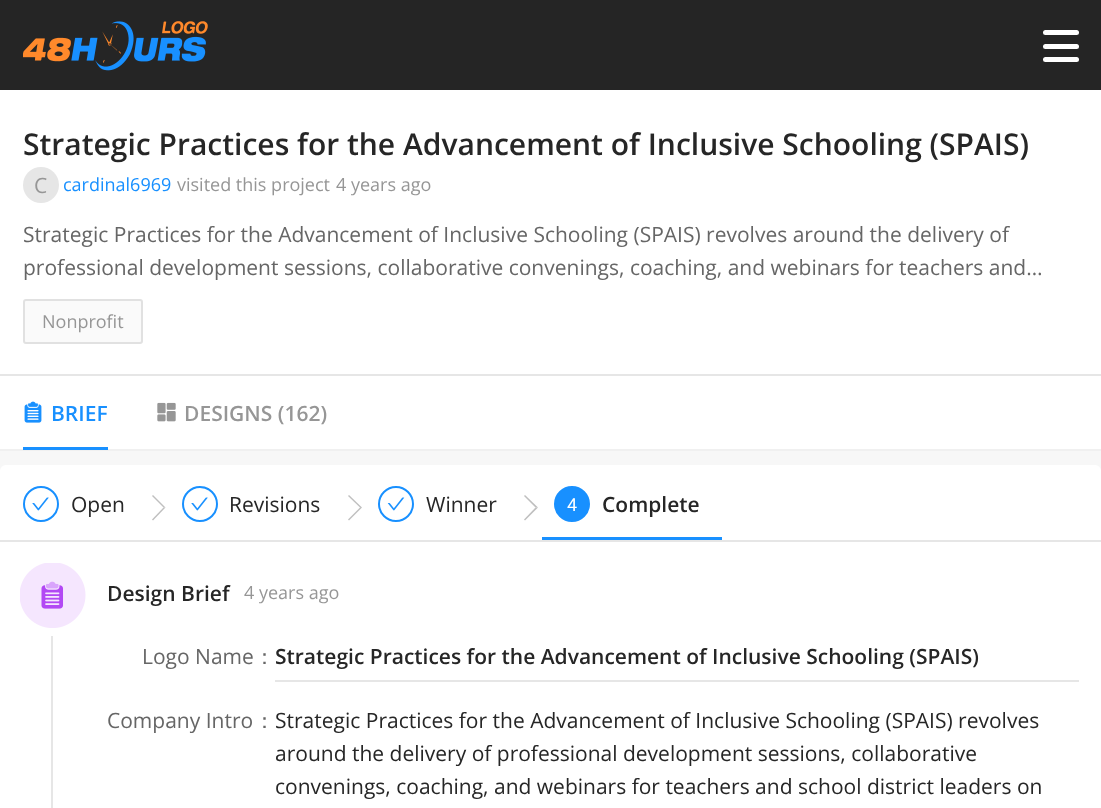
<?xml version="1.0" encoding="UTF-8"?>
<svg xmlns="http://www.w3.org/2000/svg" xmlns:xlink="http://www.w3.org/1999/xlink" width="1101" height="808">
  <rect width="100%" height="100%" fill="#f7f7f7" />
  <rect width="1101" height="90" fill="#252525" />
  <image x="23" y="21" width="185" height="50" xlink:href="image1.png" />
  <rect x="1043" y="44" width="36" height="5" rx="2.5" fill="#ffffff" />
  <rect x="1043" y="30" width="36" height="5" rx="2.5" fill="#ffffff" />
  <rect x="1043" y="57" width="36" height="5" rx="2.5" fill="#ffffff" />
  <rect y="90" width="1101" height="284" fill="#ffffff" />
  <circle cx="41" cy="185" r="18" fill="#e6e6e6" />
  <rect x="24" y="300" width="118" height="43" rx="2" fill="#fafafa" stroke="#e1e1e1" stroke-width="2" />
  <rect y="376" width="1101" height="73" fill="#ffffff" />
  <rect y="374" width="1101" height="2" fill="#e6e6e6" />
  <image x="24" y="401" width="18" height="22" xlink:href="image2.png" />
  <image x="157" y="402" width="19" height="20" xlink:href="image3.png" />
  <rect y="449" width="1101" height="2" fill="#f0f0f0" />
  <rect x="23" y="447" width="85" height="3" fill="#1890ff" />
  <rect y="465" width="1101" height="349" rx="6" fill="#ffffff" />
  <rect y="540" width="1101" height="2" fill="#e6e6e6" />
  <circle cx="41" cy="504" r="17" fill="none" stroke="#1890ff" stroke-width="2" />
  <image x="32" y="497" width="17" height="14" xlink:href="image4.png" />
  <path d="M 153 495 l 12.5 12.5 h -2 l -11.5 -11.5 z" fill="#bfbfbf" />
  <path d="M 165.5 507.5 l -12.5 13 l -1 -1 l 11.5 -12 z" fill="#bfbfbf" />
  <circle cx="200" cy="504" r="17" fill="none" stroke="#1890ff" stroke-width="2" />
  <image x="191" y="497" width="17" height="14" xlink:href="image4.png" />
  <path d="M 349 495 l 13 12.5 h -2 l -12 -11.5 z" fill="#bfbfbf" />
  <path d="M 362 507.5 l -13 13 l -1 -1 l 12 -12 z" fill="#000000" fill-opacity="0.25" />
  <circle cx="396" cy="504" r="17" fill="none" stroke="#1890ff" stroke-width="2" />
  <image x="387" y="497" width="18" height="14" xlink:href="image5.png" />
  <path d="M 525 495 l 13 12.5 h -2.5 l -11.5 -11.5 z" fill="#bfbfbf" />
  <path d="M 538 507.5 l -13 13 l -1 -1 l 11.5 -12 z" fill="#bfbfbf" />
  <circle cx="572" cy="504" r="17" fill="#1890ff" stroke="#1890ff" stroke-width="2" />
  <rect x="542" y="537" width="180" height="3" fill="#1890ff" />
  <image x="20" y="563" width="66" height="65" xlink:href="image6.png" />
  <rect x="275" y="680" width="804" height="2" fill="#e6e6e6" />
  <rect x="51" y="636" width="2" height="172" fill="#e6e6e6" />
  <text x="23" y="155" style="font-family: Open Sans; font-size: 30px; font-weight: 600; fill: #262626">Strategic Practices for the Advancement of Inclusive Schooling (SPAIS)</text>
  <text x="34" y="193" style="font-family: Open Sans; font-size: 21px; fill: #969696">C</text>
  <text x="63" y="191" style="font-family: Open Sans; font-size: 18px; fill: #1890ff">cardinal6969</text>
  <text x="177" y="191" style="font-family: Open Sans; font-size: 18px; fill: #969696">visited this project</text>
  <text x="336" y="191" style="font-family: Open Sans; font-size: 18px; fill: #969696">4 years ago</text>
  <text x="23" y="242" style="font-family: Open Sans; font-size: 21px; fill: #666666">Strategic Practices for the Advancement of Inclusive Schooling (SPAIS) revolves around the delivery of</text>
  <text x="23" y="275" style="font-family: Open Sans; font-size: 21px; fill: #666666">professional development sessions, collaborative convenings, coaching, and webinars for teachers and…</text>
  <text x="42" y="328" style="font-family: Open Sans; font-size: 18px; fill: #969696">Nonprofit</text>
  <text x="51" y="421" style="font-family: 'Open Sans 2'; font-size: 21px; font-weight: 600; fill: #1890ff">BRIEF</text>
  <text x="184" y="421" style="font-family: 'Open Sans 2'; font-size: 21px; font-weight: 600; fill: #969696">DESIGNS (162)</text>
  <text x="71" y="512" style="font-family: Open Sans; font-size: 21px; fill: #262626">Open</text>
  <text x="229" y="512" style="font-family: Open Sans; font-size: 21px; fill: #262626">Revisions</text>
  <text x="426" y="512" style="font-family: Open Sans; font-size: 21px; fill: #262626">Winner</text>
  <text x="567" y="511" style="font-family: Roboto; font-size: 18px; fill: #ffffff">4</text>
  <text x="602" y="512" style="font-family: 'Open Sans 2'; font-size: 21px; font-weight: 600; fill: #262626">Complete</text>
  <text x="107" y="601" style="font-family: 'Open Sans 2'; font-size: 21px; font-weight: 600; fill: #262626">Design Brief</text>
  <text x="244" y="599" style="font-family: Open Sans; font-size: 18px; fill: #969696">4 years ago</text>
  <text x="142" y="664" style="font-family: Open Sans; font-size: 21px; fill: #666666">Logo Name</text>
  <text x="254" y="664" style="font-family: WenQuanYi Zen Hei; font-size: 21px; font-weight: 500; fill: #666666">：</text>
  <text x="275" y="664" style="font-family: 'Open Sans 2'; font-size: 21px; font-weight: 600; fill: #262626">Strategic Practices for the Advancement of Inclusive Schooling (SPAIS)</text>
  <text x="107" y="728" style="font-family: Open Sans; font-size: 21px; fill: #666666">Company Intro</text>
  <text x="254" y="728" style="font-family: WenQuanYi Zen Hei; font-size: 21px; font-weight: 500; fill: #666666">：</text>
  <text x="275" y="728" style="font-family: Open Sans; font-size: 21px; fill: #262626">Strategic Practices for the Advancement of Inclusive Schooling (SPAIS) revolves</text>
  <text x="275" y="761" style="font-family: Open Sans; font-size: 21px; fill: #262626">around the delivery of professional development sessions, collaborative</text>
  <text x="275" y="794" style="font-family: Open Sans; font-size: 21px; fill: #262626">convenings, coaching, and webinars for teachers and school district leaders on</text>
</svg>
